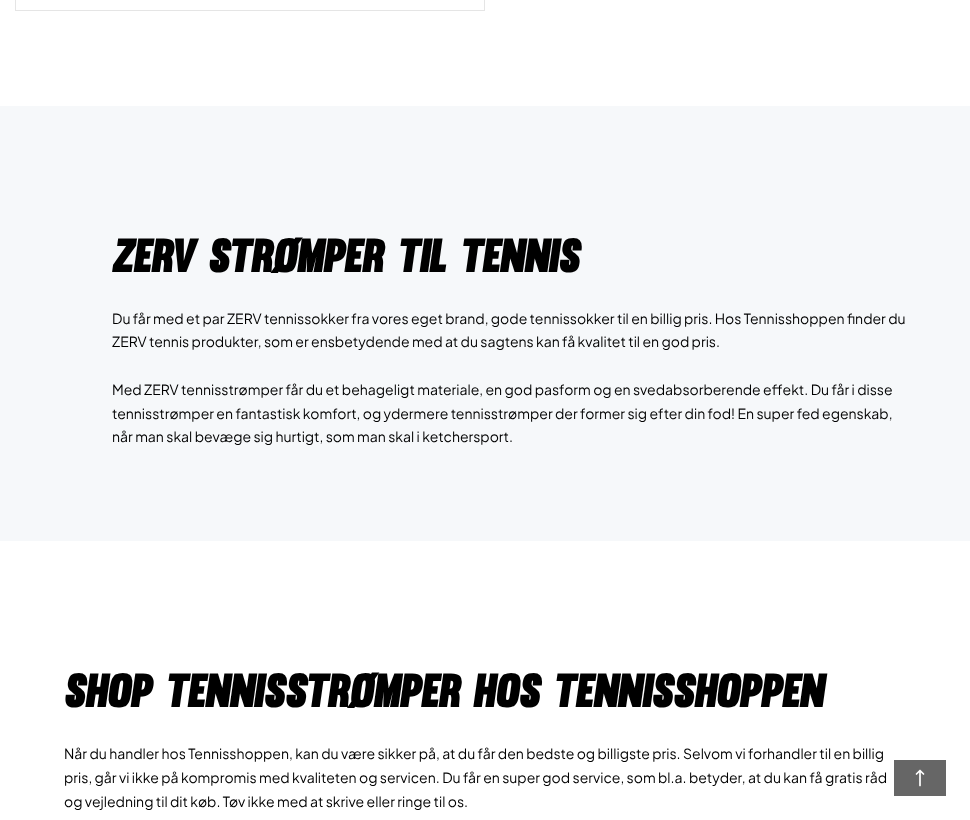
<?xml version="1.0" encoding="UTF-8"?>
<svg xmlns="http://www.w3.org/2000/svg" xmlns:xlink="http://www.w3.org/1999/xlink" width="970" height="820">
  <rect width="100%" height="100%" fill="#ffffff" />
  <rect x="15.5" y="-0.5" width="469" height="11" fill="none" stroke="#e5e5e5" />
  <rect y="106" width="970" height="435" fill="#f6f8fa" />
  <rect x="894" y="760" width="52" height="36" fill="#666666" />
  <path d="M 916.5 774 l 3.5 -3.5 m 0 0 l 3.5 3.5 m -3.5 -3.5 v 15" fill="none" stroke="#ffffff" stroke-width="1.7" stroke-linecap="round" stroke-linejoin="round" />
  <text x="112" y="272" style="font-family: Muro; font-size: 45px; font-weight: bold; font-style: italic; fill: #000000">ZERV Strømper til Tennis</text>
  <text x="112" y="324" style="font-family: Plus Jakarta Sans; font-size: 14px; fill: #000000">Du får med et par ZERV tennissokker fra vores eget brand, gode tennissokker til en billig pris. Hos Tennisshoppen finder du</text>
  <text x="112" y="347" style="font-family: Plus Jakarta Sans; font-size: 14px; fill: #000000">ZERV tennis produkter, som er ensbetydende med at du sagtens kan få kvalitet til en god pris.</text>
  <text x="112" y="395" style="font-family: Plus Jakarta Sans; font-size: 14px; fill: #000000">Med ZERV tennisstrømper får du et behageligt materiale, en god pasform og en svedabsorberende effekt. Du får i disse</text>
  <text x="112" y="419" style="font-family: Plus Jakarta Sans; font-size: 14px; fill: #000000">tennisstrømper en fantastisk komfort, og ydermere tennisstrømper der former sig efter din fod! En super fed egenskab,</text>
  <text x="112" y="442" style="font-family: Plus Jakarta Sans; font-size: 14px; fill: #000000">når man skal bevæge sig hurtigt, som man skal i ketchersport.</text>
  <text x="64" y="707" style="font-family: Muro; font-size: 45px; font-weight: bold; font-style: italic; fill: #000000">Shop tennisstrømper hos Tennisshoppen</text>
  <text x="64" y="759" style="font-family: Plus Jakarta Sans; font-size: 14px; fill: #000000">Når du handler hos Tennisshoppen, kan du være sikker på, at du får den bedste og billigste pris. Selvom vi forhandler til en billig</text>
  <text x="64" y="783" style="font-family: Plus Jakarta Sans; font-size: 14px; fill: #000000">pris, går vi ikke på kompromis med kvaliteten og servicen. Du får en super god service, som bl.a. betyder, at du kan få gratis råd</text>
  <text x="64" y="807" style="font-family: Plus Jakarta Sans; font-size: 14px; fill: #000000">og vejledning til dit køb. Tøv ikke med at skrive eller ringe til os.</text>
</svg>
